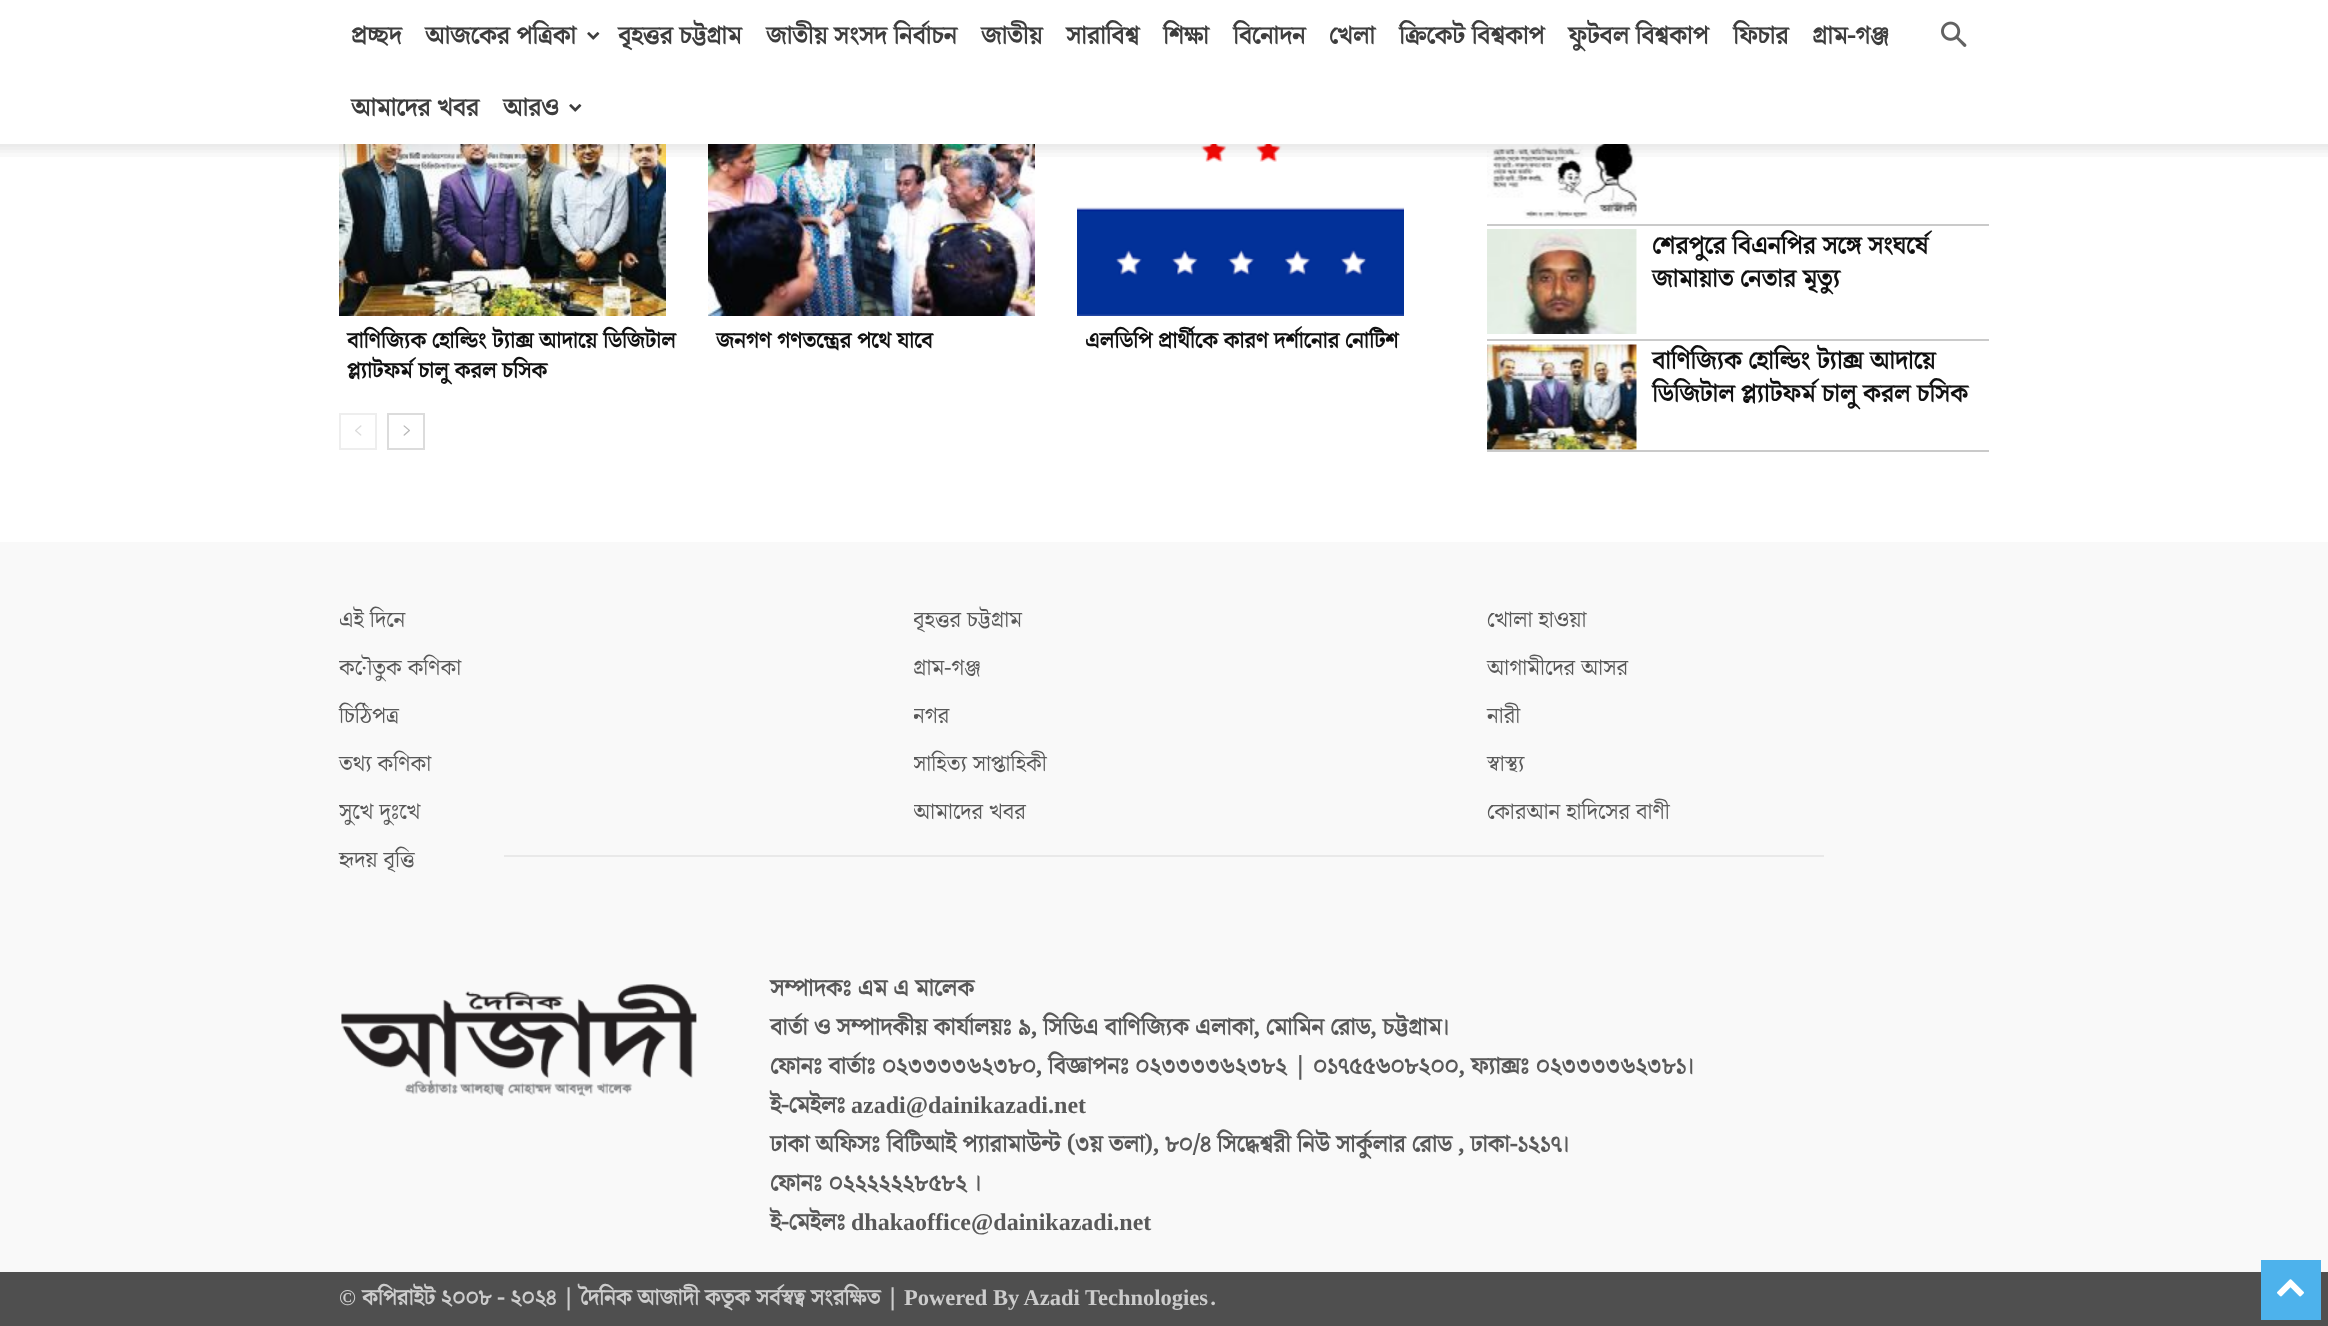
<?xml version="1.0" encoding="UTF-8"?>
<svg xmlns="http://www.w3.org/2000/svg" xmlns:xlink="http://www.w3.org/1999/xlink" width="2328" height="1326">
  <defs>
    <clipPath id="clip1"><rect x="339" y="573" width="503" height="311" /></clipPath>
    <clipPath id="clip2"><rect x="914" y="573" width="501" height="263" /></clipPath>
  </defs>
  <rect width="100%" height="100%" fill="#ffffff" />
  <image x="587" y="32" width="13" height="8" xlink:href="image1.png" />
  <image x="569" y="104" width="13" height="8" xlink:href="image1.png" />
  <image x="1941" y="21" width="26" height="26" xlink:href="image2.png" />
  <image x="339" y="144" width="327" height="172" xlink:href="image4.png" />
  <image x="708" y="144" width="327" height="172" xlink:href="image5.png" />
  <image x="1077" y="144" width="327" height="172" xlink:href="image6.png" />
  <image x="1487" y="144" width="150" height="75" xlink:href="image9.png" />
  <image x="0" y="144" width="2328" height="13" xlink:href="image3.png" />
  <rect x="340" y="414" width="36" height="35" fill="none" stroke="#eeeeee" stroke-width="2" />
  <image x="355" y="425" width="7" height="11" xlink:href="image7.png" />
  <rect x="388" y="414" width="36" height="35" fill="none" stroke="#dcdcdc" stroke-width="2" />
  <image x="403" y="425" width="7" height="11" xlink:href="image8.png" />
  <rect x="1487" y="224" width="502" height="2" fill="#cacaca" />
  <rect x="1487" y="339" width="502" height="2" fill="#cacaca" />
  <image x="1487" y="229" width="150" height="105" xlink:href="image10.png" />
  <rect x="1487" y="450" width="502" height="2" fill="#cacaca" />
  <image x="1487" y="344" width="150" height="106" xlink:href="image11.png" />
  <rect y="542" width="2328" height="730" fill="#f9f9f9" />
  <rect x="504" y="855" width="1320" height="2" fill="#e9e9e9" />
  <image x="341" y="984" width="356" height="113" xlink:href="image12.png" />
  <rect y="1272" width="2328" height="54" fill="#4f4f4f" />
  <rect x="2261" y="1260" width="60" height="60" fill="#4db2ec" />
  <image x="2277" y="1279" width="27" height="18" xlink:href="image13.png" />
  <text x="351" y="44" style="font-family: Noto Serif Bengali; font-size: 25.5px; font-weight: bold; fill: #3e3e3e">প্রচ্ছদ</text>
  <text x="425" y="44" style="font-family: Noto Serif Bengali; font-size: 25.5px; font-weight: bold; fill: #3e3e3e">আজকের পত্রিকা</text>
  <text x="618" y="44" style="font-family: Noto Serif Bengali; font-size: 25.5px; font-weight: bold; fill: #3e3e3e">বৃহত্তর চট্টগ্রাম</text>
  <text x="766" y="44" style="font-family: Noto Serif Bengali; font-size: 25.5px; font-weight: bold; fill: #3e3e3e">জাতীয় সংসদ নির্বাচন</text>
  <text x="981" y="44" style="font-family: Noto Serif Bengali; font-size: 25.5px; font-weight: bold; fill: #3e3e3e">জাতীয়</text>
  <text x="1066" y="44" style="font-family: Noto Serif Bengali; font-size: 25.5px; font-weight: bold; fill: #3e3e3e">সারাবিশ্ব</text>
  <text x="1163" y="44" style="font-family: Noto Serif Bengali; font-size: 25.5px; font-weight: bold; fill: #3e3e3e">শিক্ষা</text>
  <text x="1233" y="44" style="font-family: Noto Serif Bengali; font-size: 25.5px; font-weight: bold; fill: #3e3e3e">বিনোদন</text>
  <text x="1329" y="44" style="font-family: Noto Serif Bengali; font-size: 25.5px; font-weight: bold; fill: #3e3e3e">খেলা</text>
  <text x="1399" y="44" style="font-family: Noto Serif Bengali; font-size: 25.5px; font-weight: bold; fill: #3e3e3e">ক্রিকেট বিশ্বকাপ</text>
  <text x="1568" y="44" style="font-family: Noto Serif Bengali; font-size: 25.5px; font-weight: bold; fill: #3e3e3e">ফুটবল বিশ্বকাপ</text>
  <text x="1733" y="44" style="font-family: Noto Serif Bengali; font-size: 25.5px; font-weight: bold; fill: #3e3e3e">ফিচার</text>
  <text x="1812" y="44" style="font-family: Noto Serif Bengali; font-size: 25.5px; font-weight: bold; fill: #3e3e3e">গ্রাম-গঞ্জ</text>
  <text x="351" y="116" style="font-family: Noto Serif Bengali; font-size: 25.5px; font-weight: bold; fill: #3e3e3e">আমাদের খবর</text>
  <text x="503" y="116" style="font-family: Noto Serif Bengali; font-size: 25.5px; font-weight: bold; fill: #3e3e3e">আরও</text>
  <text x="347" y="348" style="font-family: Noto Serif Bengali; font-size: 22.5px; font-weight: bold; fill: #111111">বাণিজ্যিক হোল্ডিং ট্যাক্স আদায়ে ডিজিটাল</text>
  <text x="347" y="378" style="font-family: Noto Serif Bengali; font-size: 22.5px; font-weight: bold; fill: #111111">প্ল্যাটফর্ম চালু করল চসিক</text>
  <text x="716" y="348" style="font-family: Noto Serif Bengali; font-size: 22.5px; font-weight: bold; fill: #111111">জনগণ গণতন্ত্রের পথে যাবে</text>
  <text x="1085" y="348" style="font-family: Noto Serif Bengali; font-size: 22.5px; font-weight: bold; fill: #111111">এলডিপি প্রার্থীকে কারণ দর্শানোর নোটিশ</text>
  <text x="1652" y="254" style="font-family: Noto Serif Bengali; font-size: 25.5px; font-weight: bold; fill: #111111">শেরপুরে বিএনপির সঙ্গে সংঘর্ষে</text>
  <text x="1652" y="287" style="font-family: Noto Serif Bengali; font-size: 25.5px; font-weight: bold; fill: #111111">জামায়াত নেতার মৃত্যু</text>
  <text x="1652" y="369" style="font-family: Noto Serif Bengali; font-size: 25.5px; font-weight: bold; fill: #111111">বাণিজ্যিক হোল্ডিং ট্যাক্স আদায়ে</text>
  <text x="1652" y="402" style="font-family: Noto Serif Bengali; font-size: 25.5px; font-weight: bold; fill: #111111">ডিজিটাল প্ল্যাটফর্ম চালু করল চসিক</text>
  <text x="339" y="627" style="font-family: Noto Serif Bengali; font-size: 22.5px; fill: #595959">এই দিনে</text>
  <g clip-path="url(#clip1)">
    <text x="339" y="675" style="font-family: Noto Serif Bengali; font-size: 22.5px; fill: #595959">কৌতুক কণিকা</text>
  </g>
  <text x="339" y="723" style="font-family: Noto Serif Bengali; font-size: 22.5px; fill: #595959">চিঠিপত্র</text>
  <text x="339" y="771" style="font-family: Noto Serif Bengali; font-size: 22.5px; fill: #595959">তথ্য কণিকা</text>
  <g clip-path="url(#clip1)">
    <text x="339" y="819" style="font-family: Noto Serif Bengali; font-size: 22.5px; fill: #595959">সুখে দুঃখে</text>
  </g>
  <text x="339" y="867" style="font-family: Noto Serif Bengali; font-size: 22.5px; fill: #595959">হৃদয় বৃত্তি</text>
  <g clip-path="url(#clip2)">
    <text x="913" y="627" style="font-family: Noto Serif Bengali; font-size: 22.5px; fill: #595959">বৃহত্তর চট্টগ্রাম</text>
    <text x="913" y="675" style="font-family: Noto Serif Bengali; font-size: 22.5px; fill: #595959">গ্রাম-গঞ্জ</text>
    <text x="913" y="723" style="font-family: Noto Serif Bengali; font-size: 22.5px; fill: #595959">নগর</text>
    <text x="913" y="771" style="font-family: Noto Serif Bengali; font-size: 22.5px; fill: #595959">সাহিত্য সাপ্তাহিকী</text>
    <text x="913" y="819" style="font-family: Noto Serif Bengali; font-size: 22.5px; fill: #595959">আমাদের খবর</text>
  </g>
  <text x="1487" y="627" style="font-family: Noto Serif Bengali; font-size: 22.5px; fill: #595959">খোলা হাওয়া</text>
  <text x="1487" y="675" style="font-family: Noto Serif Bengali; font-size: 22.5px; fill: #595959">আগামীদের আসর</text>
  <text x="1487" y="723" style="font-family: Noto Serif Bengali; font-size: 22.5px; fill: #595959">নারী</text>
  <text x="1487" y="771" style="font-family: Noto Serif Bengali; font-size: 22.5px; fill: #595959">স্বাস্থ্য</text>
  <text x="1487" y="819" style="font-family: Noto Serif Bengali; font-size: 22.5px; fill: #595959">কোরআন হাদিসের বাণী</text>
  <text x="770" y="996" style="font-family: Noto Serif Bengali; font-size: 24px; font-weight: bold; fill: #595959">সম্পাদকঃ এম এ মালেক</text>
  <text x="770" y="1035" style="font-family: Noto Serif Bengali; font-size: 24px; font-weight: bold; fill: #595959">বার্তা ও সম্পাদকীয় কার্যালয়ঃ ৯, সিডিএ বাণিজ্যিক এলাকা, মোমিন রোড, চট্টগ্রাম।</text>
  <text x="770" y="1074" style="font-family: Noto Serif Bengali; font-size: 24px; font-weight: bold; fill: #595959">ফোনঃ বার্তাঃ ০২৩৩৩৩৬২৩৮০, বিজ্ঞাপনঃ ০২৩৩৩৩৬২৩৮২ | ০১৭৫৫৬০৮২০০, ফ্যাক্সঃ ০২৩৩৩৩৬২৩৮১।</text>
  <text x="770" y="1113" style="font-family: Noto Serif Bengali; font-size: 24px; font-weight: bold; fill: #595959">ই-মেইলঃ</text>
  <text x="851" y="1113" style="font-family: Liberation Serif; font-size: 24px; font-weight: bold; fill: #595959">azadi@dainikazadi.net</text>
  <text x="770" y="1152" style="font-family: Noto Serif Bengali; font-size: 24px; font-weight: bold; fill: #595959">ঢাকা অফিসঃ বিটিআই প্যারামাউন্ট (৩য় তলা), ৮০/৪ সিদ্ধেশ্বরী নিউ সার্কুলার রোড , ঢাকা-১২১৭।</text>
  <text x="770" y="1191" style="font-family: Noto Serif Bengali; font-size: 24px; font-weight: bold; fill: #595959">ফোনঃ ০২২২২২২৮৫৮২ ।</text>
  <text x="770" y="1230" style="font-family: Noto Serif Bengali; font-size: 24px; font-weight: bold; fill: #595959">ই-মেইলঃ</text>
  <text x="851" y="1230" style="font-family: Liberation Serif; font-size: 24px; font-weight: bold; fill: #595959">dhakaoffice@dainikazadi.net</text>
  <text x="339" y="1305" style="font-family: Liberation Serif; font-size: 22.5px; font-weight: bold; fill: #cccccc">©</text>
  <text x="362" y="1305" style="font-family: Noto Serif Bengali; font-size: 22.5px; font-weight: bold; fill: #cccccc">কপিরাইট ২০০৮ - ২০২৪ | দৈনিক আজাদী কতৃক সর্বস্বত্ব সংরক্ষিত |</text>
  <text x="904" y="1305" style="font-family: Liberation Serif; font-size: 22.5px; font-weight: bold; fill: #cccccc">Powered By Azadi Technologies</text>
  <text x="1210" y="1305" style="font-family: Noto Serif Bengali; font-size: 22.5px; font-weight: bold; fill: #cccccc">.</text>
</svg>
